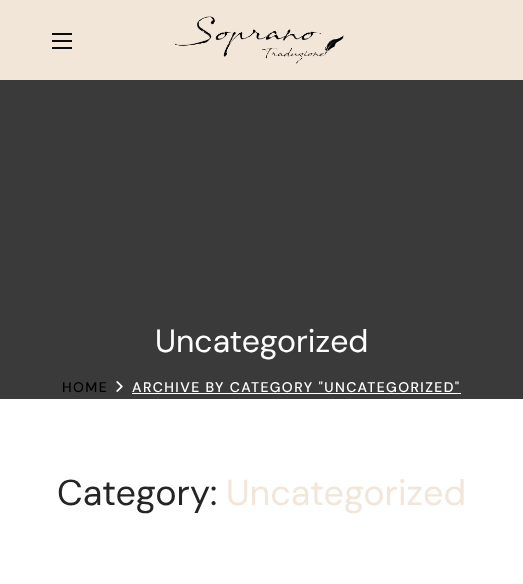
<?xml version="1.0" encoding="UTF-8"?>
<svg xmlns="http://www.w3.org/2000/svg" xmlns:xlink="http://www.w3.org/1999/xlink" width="523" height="584">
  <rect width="100%" height="100%" fill="#ffffff" />
  <rect width="523" height="80" fill="#f2e6d9" />
  <rect x="52" y="33" width="20" height="2" fill="#0a0a0a" />
  <rect x="52" y="40" width="20" height="2" fill="#0a0a0a" />
  <rect x="52" y="47" width="20" height="2" fill="#0a0a0a" />
  <image x="174" y="16" width="170" height="48" xlink:href="image1.png" />
  <rect y="80" width="523" height="319" fill="#3a3a3a" />
  <image x="116" y="381" width="7" height="11" xlink:href="image2.png" />
  <rect x="132" y="393" width="329" height="1" fill="#ffffff" />
  <text x="155" y="352" style="font-family: DM Sans; font-size: 32px; fill: #ffffff">Uncategorized</text>
  <text x="62" y="392" style="font-family: DM Sans; font-size: 14px; font-weight: 500; letter-spacing: 1.4px; fill: #000000">HOME</text>
  <text x="132" y="392" style="font-family: DM Sans; font-size: 14px; font-weight: 500; letter-spacing: 1.4px; fill: #ffffff">ARCHIVE BY CATEGORY "UNCATEGORIZED"</text>
  <text x="57" y="505" style="font-family: DM Sans; font-size: 36px; fill: #252525">Category:</text>
  <text x="226" y="505" style="font-family: DM Sans; font-size: 36px; fill: #f2e6d9">Uncategorized</text>
</svg>
